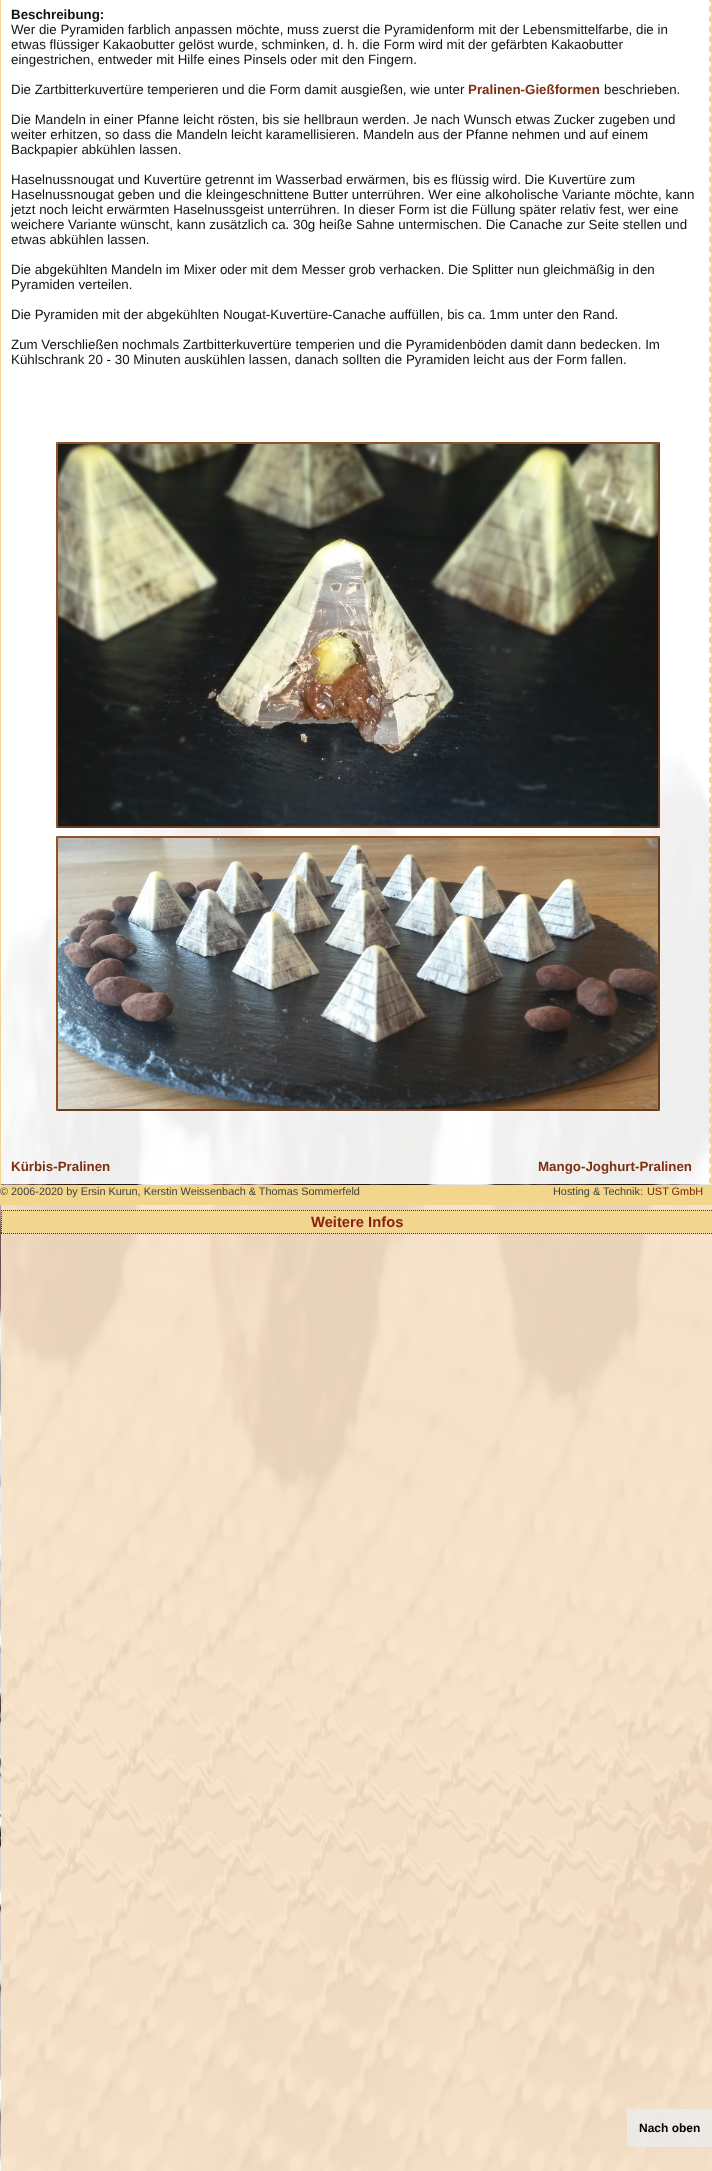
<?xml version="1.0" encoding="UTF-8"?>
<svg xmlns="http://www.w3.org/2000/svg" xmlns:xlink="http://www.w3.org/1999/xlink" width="712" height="2171">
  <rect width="100%" height="100%" fill="#ffffff" />
  <image x="0" y="0" width="712" height="2171" xlink:href="image1.png" />
  <rect x="711" width="1" height="1185" fill="#f2d68c" />
  <rect width="1" height="1185" fill="#f2d68c" />
  <rect x="1" y="681" width="710" height="503" fill="#ffffff" fill-opacity="0.93" />
  <path d="M 710 -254 v 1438" fill="none" stroke="#f2d68c" stroke-opacity="0.93" stroke-width="2" stroke-dasharray="6 4.01" />
  <path d="M 56 442 h 604 l -2 2 h -600 z" fill="#935224" />
  <path d="M 660 442 v 386 l -2 -2 v -382 z" fill="#5d2e0d" fill-opacity="0.93" />
  <path d="M 660 828 h -604 l 2 -2 h 600 z" fill="#5d2e0d" fill-opacity="0.93" />
  <path d="M 56 828 v -386 l 2 2 v 382 z" fill="#935224" />
  <image x="58" y="444" width="600" height="382" xlink:href="image2.png" />
  <path d="M 56 836 h 604 l -2 2 h -600 z" fill="#8b4513" fill-opacity="0.93" />
  <path d="M 660 836 v 275 l -2 -2 v -271 z" fill="#5d2e0d" fill-opacity="0.93" />
  <path d="M 660 1111 h -604 l 2 -2 h 600 z" fill="#5d2e0d" fill-opacity="0.93" />
  <path d="M 56 1111 v -275 l 2 2 v 271 z" fill="#8b4513" fill-opacity="0.93" />
  <image x="58" y="838" width="600" height="271" xlink:href="image3.png" />
  <rect x="1" y="1205" width="711" height="966" fill="#f7e2c7" fill-opacity="0.93" />
  <rect x="1" y="1210" width="711" height="24" fill="#f2d68c" fill-opacity="0.93" />
  <path d="M 1 1210.5 h 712" fill="none" stroke="#593611" stroke-dasharray="1 1" />
  <path d="M 1 1233.5 h 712" fill="none" stroke="#593611" stroke-dasharray="1 1" />
  <path d="M 1.5 1210 v 24" fill="none" stroke="#4e2a07" stroke-opacity="0.93" stroke-dasharray="1 1" />
  <rect y="1185" width="712" height="20" fill="#f2d68c" />
  <rect x="627" y="2109" width="85" height="38" fill="#ebebeb" fill-opacity="0.8" />
  <text x="11" y="19" style="font-family: Liberation Sans; font-size: 13.33px; font-weight: bold; fill: #121212">Beschreibung:</text>
  <text x="11" y="34" style="font-family: Liberation Sans; font-size: 13.33px; fill: #121212">Wer die Pyramiden farblich anpassen möchte, muss zuerst die Pyramidenform mit der Lebensmittelfarbe, die in</text>
  <text x="11" y="49" style="font-family: Liberation Sans; font-size: 13.33px; fill: #121212">etwas flüssiger Kakaobutter gelöst wurde, schminken, d. h. die Form wird mit der gefärbten Kakaobutter</text>
  <text x="11" y="64" style="font-family: Liberation Sans; font-size: 13.33px; fill: #121212">eingestrichen, entweder mit Hilfe eines Pinsels oder mit den Fingern.</text>
  <text x="11" y="94" style="font-family: Liberation Sans; font-size: 13.33px; fill: #121212">Die Zartbitterkuvertüre temperieren und die Form damit ausgießen, wie unter</text>
  <text x="468" y="94" style="font-family: Liberation Sans; font-size: 13.33px; font-weight: bold; fill: #7e2e11">Pralinen-Gießformen</text>
  <text x="604" y="94" style="font-family: Liberation Sans; font-size: 13.33px; fill: #121212">beschrieben.</text>
  <text x="11" y="124" style="font-family: Liberation Sans; font-size: 13.33px; fill: #121212">Die Mandeln in einer Pfanne leicht rösten, bis sie hellbraun werden. Je nach Wunsch etwas Zucker zugeben und</text>
  <text x="11" y="139" style="font-family: Liberation Sans; font-size: 13.33px; fill: #121212">weiter erhitzen, so dass die Mandeln leicht karamellisieren. Mandeln aus der Pfanne nehmen und auf einem</text>
  <text x="11" y="154" style="font-family: Liberation Sans; font-size: 13.33px; fill: #121212">Backpapier abkühlen lassen.</text>
  <text x="11" y="184" style="font-family: Liberation Sans; font-size: 13.33px; fill: #121212">Haselnussnougat und Kuvertüre getrennt im Wasserbad erwärmen, bis es flüssig wird. Die Kuvertüre zum</text>
  <text x="11" y="199" style="font-family: Liberation Sans; font-size: 13.33px; fill: #121212">Haselnussnougat geben und die kleingeschnittene Butter unterrühren. Wer eine alkoholische Variante möchte, kann</text>
  <text x="11" y="214" style="font-family: Liberation Sans; font-size: 13.33px; fill: #121212">jetzt noch leicht erwärmten Haselnussgeist unterrühren. In dieser Form ist die Füllung später relativ fest, wer eine</text>
  <text x="11" y="229" style="font-family: Liberation Sans; font-size: 13.33px; fill: #121212">weichere Variante wünscht, kann zusätzlich ca. 30g heiße Sahne untermischen. Die Canache zur Seite stellen und</text>
  <text x="11" y="244" style="font-family: Liberation Sans; font-size: 13.33px; fill: #121212">etwas abkühlen lassen.</text>
  <text x="11" y="274" style="font-family: Liberation Sans; font-size: 13.33px; fill: #121212">Die abgekühlten Mandeln im Mixer oder mit dem Messer grob verhacken. Die Splitter nun gleichmäßig in den</text>
  <text x="11" y="289" style="font-family: Liberation Sans; font-size: 13.33px; fill: #121212">Pyramiden verteilen.</text>
  <text x="11" y="319" style="font-family: Liberation Sans; font-size: 13.33px; fill: #121212">Die Pyramiden mit der abgekühlten Nougat-Kuvertüre-Canache auffüllen, bis ca. 1mm unter den Rand.</text>
  <text x="11" y="349" style="font-family: Liberation Sans; font-size: 13.33px; fill: #121212">Zum Verschließen nochmals Zartbitterkuvertüre temperien und die Pyramidenböden damit dann bedecken. Im</text>
  <text x="11" y="364" style="font-family: Liberation Sans; font-size: 13.33px; fill: #121212">Kühlschrank 20 - 30 Minuten auskühlen lassen, danach sollten die Pyramiden leicht aus der Form fallen.</text>
  <text x="11" y="1171" style="font-family: Liberation Sans; font-size: 13.33px; font-weight: bold; fill: #7e2e11">Kürbis-Pralinen</text>
  <text x="538" y="1171" style="font-family: Liberation Sans; font-size: 13.33px; font-weight: bold; fill: #7e2e11">Mango-Joghurt-Pralinen</text>
  <text x="311" y="1227" style="font-family: Liberation Sans; font-size: 14.75px; font-weight: bold; fill: #891d10">Weitere Infos</text>
  <text x="0" y="1195" style="font-family: Liberation Sans; font-size: 10.9px; fill: #404040">© 2006-2020 by Ersin Kurun, Kerstin Weissenbach &amp; Thomas Sommerfeld</text>
  <text x="553" y="1195" style="font-family: Liberation Sans; font-size: 10.9px; fill: #404040">Hosting &amp; Technik:</text>
  <text x="647" y="1195" style="font-family: Liberation Sans; font-size: 10.9px; fill: #751f00">UST GmbH</text>
  <text x="639" y="2132" style="font-family: Liberation Sans; font-size: 12px; font-weight: bold; fill: #000000">Nach oben</text>
</svg>
